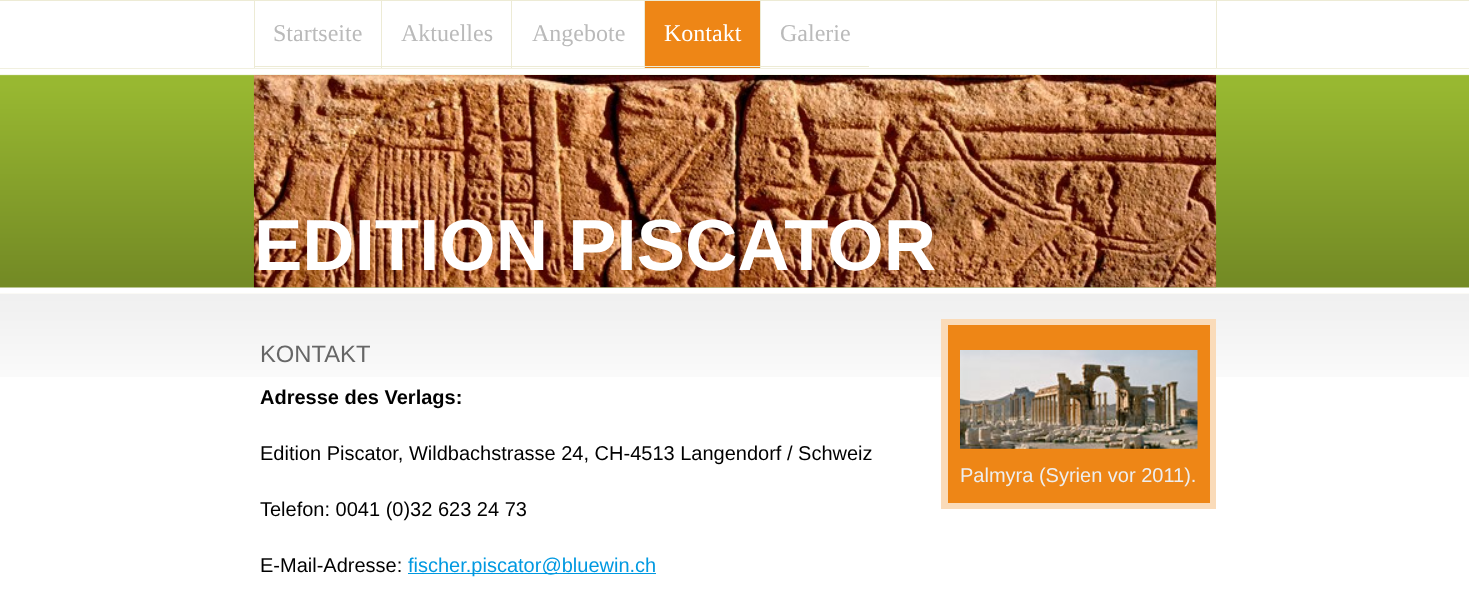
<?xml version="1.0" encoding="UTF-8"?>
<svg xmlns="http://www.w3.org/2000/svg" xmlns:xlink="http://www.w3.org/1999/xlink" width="1469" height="593">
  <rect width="100%" height="100%" fill="#edebd5" />
  <rect y="1" width="1469" height="67" fill="#ffffff" />
  <rect x="1216" y="1" width="1" height="67" fill="#edebd5" />
  <rect x="254" y="66" width="390" height="1" fill="#edebd5" />
  <rect x="254" y="1" width="1" height="67" fill="#edebd5" />
  <rect x="381" y="1" width="1" height="67" fill="#edebd5" />
  <rect x="511" y="1" width="1" height="67" fill="#edebd5" />
  <rect x="645" y="1" width="115" height="67" fill="#ee8616" />
  <rect x="644" y="66" width="225" height="1" fill="#edebd5" />
  <rect x="644" y="1" width="1" height="67" fill="#edebd5" />
  <rect x="760" y="1" width="1" height="67" fill="#edebd5" />
  <image x="0" y="68" width="1469" height="226" xlink:href="image1.png" />
  <image x="253" y="75" width="964" height="213" xlink:href="image2.png" />
  <rect y="377" width="1469" height="216" fill="#ffffff" />
  <image x="0" y="294" width="1469" height="83" xlink:href="image3.png" />
  <rect x="408" y="573" width="248" height="1" fill="#0099e1" />
  <rect x="941" y="319" width="275" height="190" fill="#fadbb9" />
  <rect x="948" y="325" width="262" height="178" fill="#ee8616" />
  <image x="960" y="350" width="238" height="99" xlink:href="image4.png" />
  <text x="273" y="41" style="font-family: Liberation Serif; font-size: 24px; fill: #bababa">Startseite</text>
  <text x="401" y="41" style="font-family: Liberation Serif; font-size: 24px; fill: #bababa">Aktuelles</text>
  <text x="532" y="41" style="font-family: Liberation Serif; font-size: 24px; fill: #bababa">Angebote</text>
  <text x="664" y="41" style="font-family: Liberation Serif; font-size: 24px; fill: #ffffff">Kontakt</text>
  <text x="780" y="41" style="font-family: Liberation Serif; font-size: 24px; fill: #bababa">Galerie</text>
  <text x="254" y="270" style="font-family: Liberation Sans; font-size: 72.5px; font-weight: bold; fill: #ffffff">EDITION PISCATOR</text>
  <text x="260" y="362" style="font-family: Liberation Sans; font-size: 23.75px; fill: #666666">KONTAKT</text>
  <text x="260" y="404" style="font-family: Liberation Sans; font-size: 20px; font-weight: bold; fill: #000000">Adresse des Verlags:</text>
  <text x="260" y="460" style="font-family: Liberation Sans; font-size: 20px; fill: #000000">Edition Piscator, Wildbachstrasse 24, CH-4513 Langendorf / Schweiz</text>
  <text x="260" y="516" style="font-family: Liberation Sans; font-size: 20px; fill: #000000">Telefon: 0041 (0)32 623 24 73</text>
  <text x="260" y="572" style="font-family: Liberation Sans; font-size: 20px; fill: #000000">E-Mail-Adresse:</text>
  <text x="408" y="572" style="font-family: Liberation Sans; font-size: 20px; fill: #0099e1">fischer.piscator@bluewin.ch</text>
  <text x="960" y="482" style="font-family: Liberation Sans; font-size: 20px; fill: #eeeeee">Palmyra (Syrien vor 2011).</text>
</svg>
